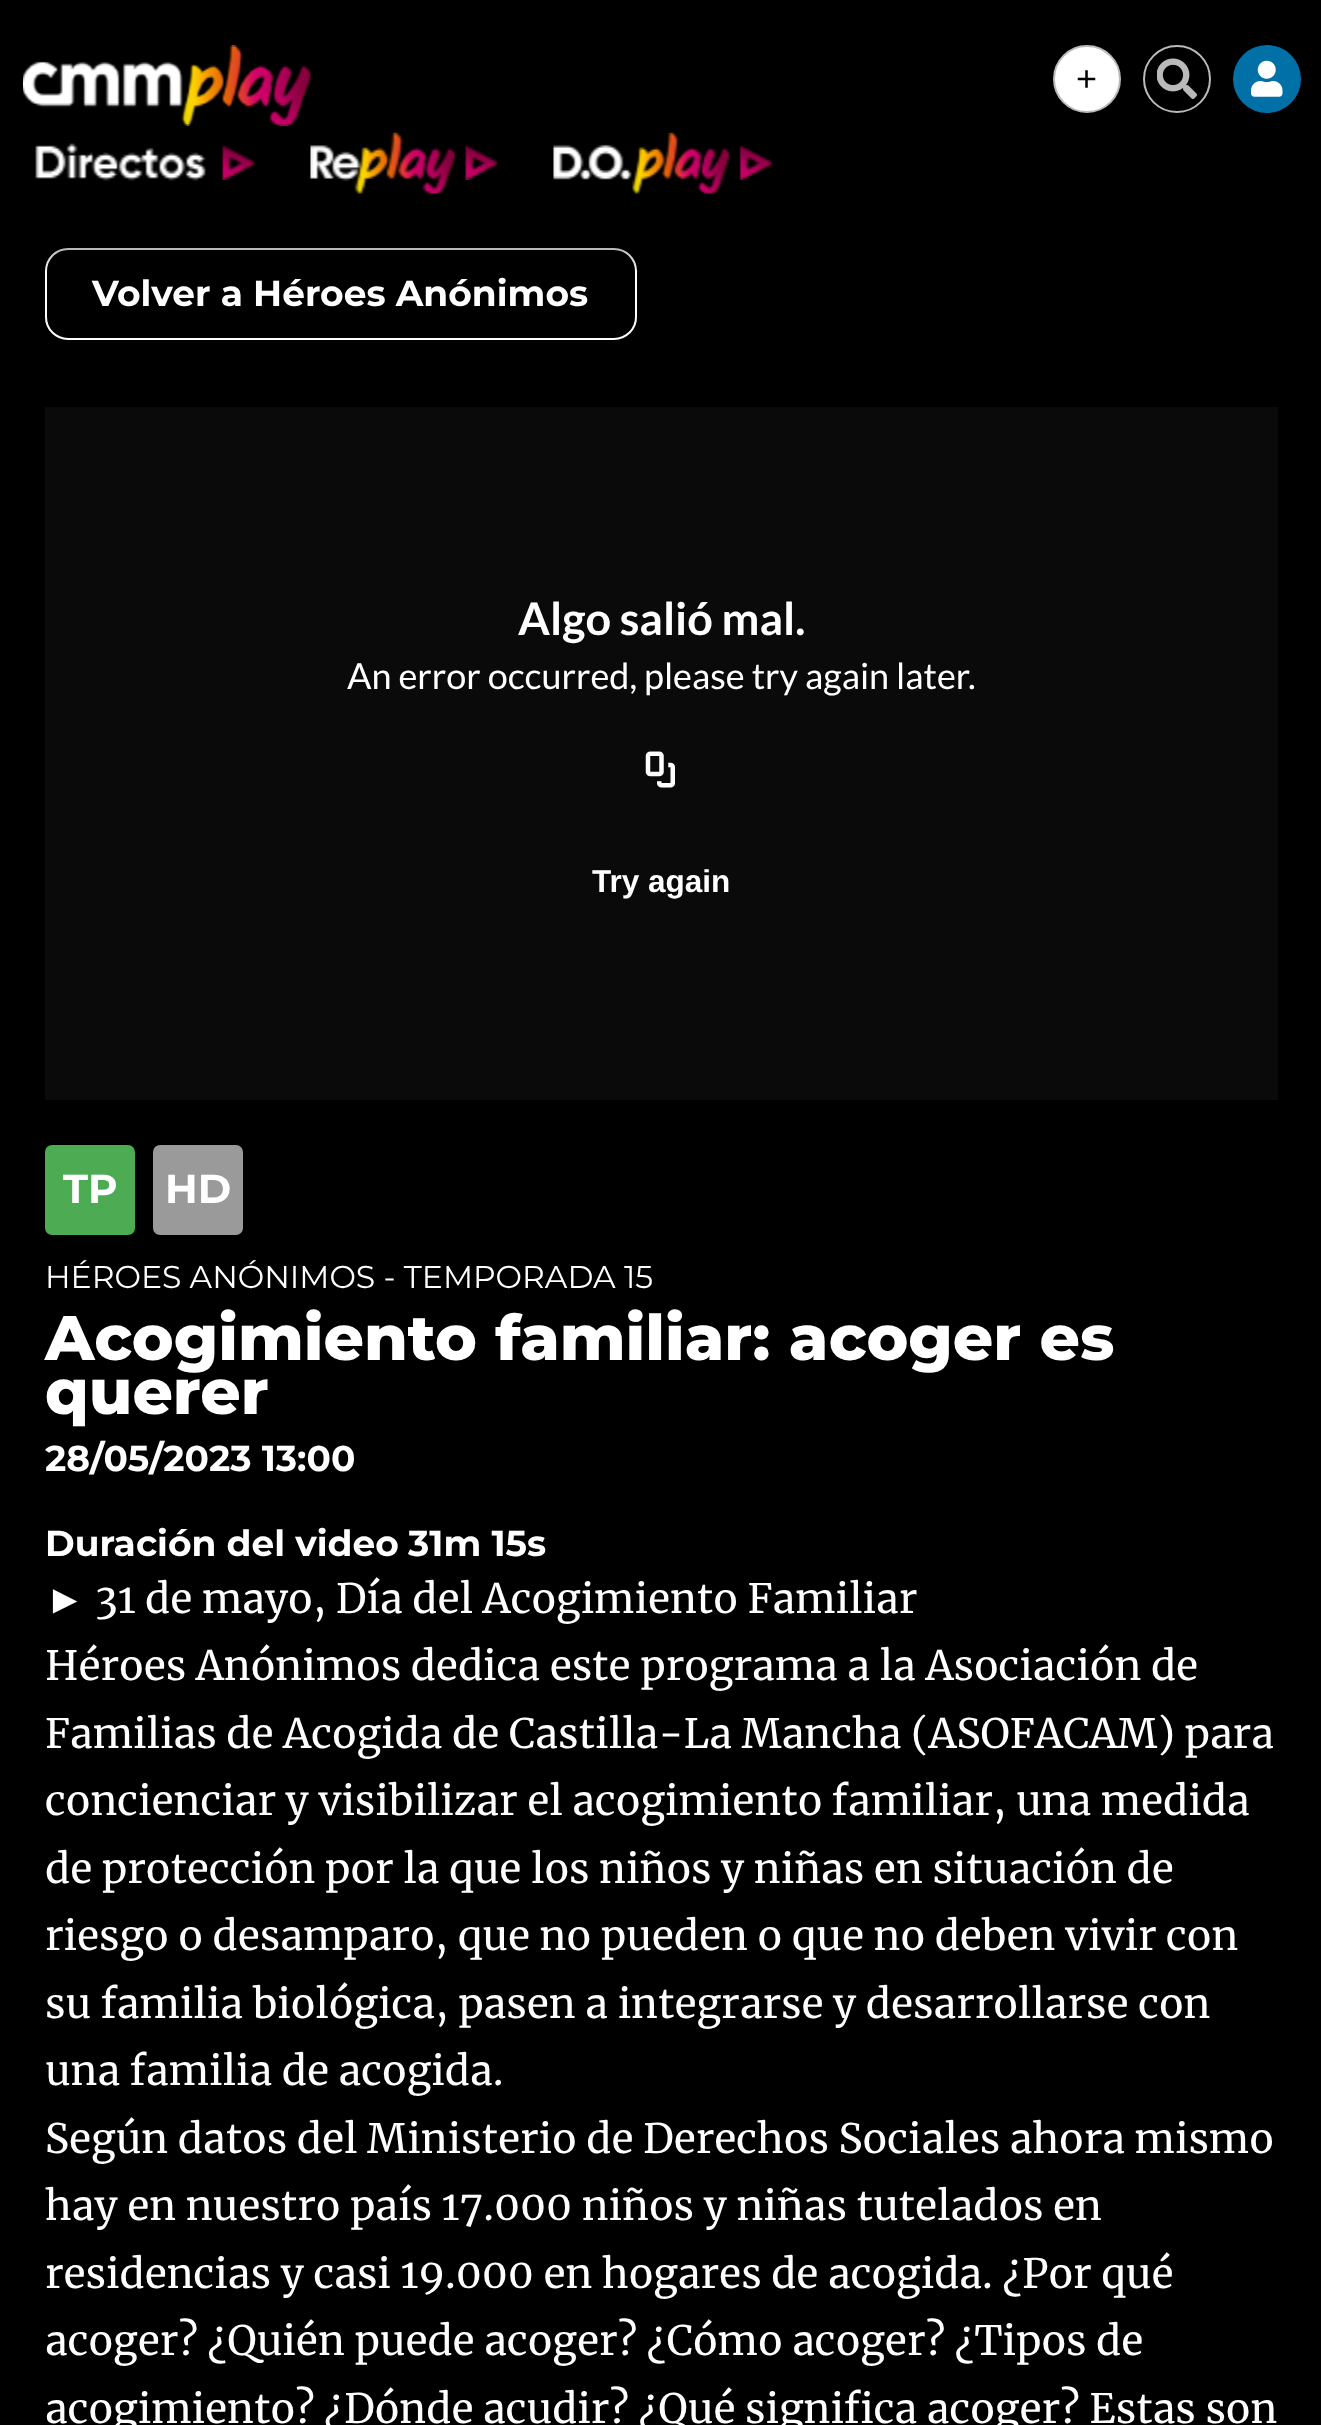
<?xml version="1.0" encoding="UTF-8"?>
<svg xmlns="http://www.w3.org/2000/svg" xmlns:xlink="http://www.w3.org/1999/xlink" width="1321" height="2425">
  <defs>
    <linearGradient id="g1" gradientUnits="userSpaceOnUse" x1="662" y1="272" x2="662" y2="0"><stop offset="0" stop-color="#000000" stop-opacity="0" /><stop offset="0.28" stop-color="#000000" stop-opacity="0.91" /><stop offset="1" stop-color="#000000" /></linearGradient>
  </defs>
  <rect width="100%" height="100%" fill="#000000" />
  <rect x="46" y="249" width="590" height="90" rx="22" fill="none" stroke="#ffffff" stroke-width="2" />
  <rect x="45" y="248" width="592" height="22" fill="url(#g1)" />
  <image x="23" y="45" width="288" height="81" xlink:href="image1.png" />
  <circle cx="1087" cy="79" r="33" fill="#ffffff" stroke="#bababa" stroke-width="2" />
  <circle cx="1177" cy="79" r="33" fill="none" stroke="#bababa" stroke-width="2" />
  <image x="1157" y="58" width="40" height="41" xlink:href="image2.png" />
  <circle cx="1267" cy="79" r="34" fill="#0070a7" />
  <image x="1251" y="60" width="32" height="37" xlink:href="image3.png" />
  <image x="35" y="143" width="171" height="38" xlink:href="image4.png" />
  <image x="222" y="146" width="33" height="34" xlink:href="image5.png" />
  <image x="310" y="132" width="145" height="62" xlink:href="image6.png" />
  <image x="465" y="146" width="33" height="34" xlink:href="image5.png" />
  <image x="553" y="132" width="177" height="62" xlink:href="image7.png" />
  <image x="739" y="146" width="34" height="34" xlink:href="image8.png" />
  <rect x="45" y="407" width="1233" height="693" fill="#0a0a0a" />
  <image x="645" y="751" width="30" height="37" xlink:href="image9.png" />
  <rect x="45" y="1145" width="90" height="90" rx="7" fill="#4dab54" />
  <rect x="153" y="1145" width="90" height="90" rx="7" fill="#9a9a9a" />
  <text x="1076" y="91" style="font-family: Liberation Sans; font-size: 36px; fill: #000000">+</text>
  <text x="92" y="306" style="font-family: Montserrat; font-size: 36px; font-weight: bold; fill: #ffffff">Volver a Héroes Anónimos</text>
  <text x="518" y="635" style="font-family: Lato; font-size: 45px; font-weight: bold; fill: #ffffff">Algo salió mal.</text>
  <text x="347" y="689" style="font-family: Lato; font-size: 36px; fill: #ffffff">An error occurred, please try again later.</text>
  <text x="592" y="892" style="font-family: Liberation Sans; font-size: 31.5px; font-weight: bold; fill: #ffffff">Try again</text>
  <text x="63" y="1203" style="font-family: Montserrat; font-size: 40.5px; font-weight: bold; fill: #ffffff">TP</text>
  <text x="165" y="1203" style="font-family: Montserrat; font-size: 40.5px; font-weight: bold; fill: #ffffff">HD</text>
  <text x="45" y="1288" style="font-family: Montserrat; font-size: 31.5px; fill: #ffffff">HÉROES ANÓNIMOS - TEMPORADA 15</text>
  <text x="45" y="1360" style="font-family: Montserrat; font-size: 63px; font-weight: 800; fill: #ffffff">Acogimiento familiar: acoger es</text>
  <text x="45" y="1414" style="font-family: Montserrat; font-size: 63px; font-weight: 800; fill: #ffffff">querer</text>
  <text x="45" y="1471" style="font-family: Montserrat; font-size: 36px; font-weight: bold; fill: #ffffff">28/05/2023 13:00</text>
  <text x="45" y="1556" style="font-family: Montserrat; font-size: 36px; font-weight: bold; fill: #ffffff">Duración del video</text>
  <text x="408" y="1556" style="font-family: Montserrat; font-size: 36px; font-weight: bold; fill: #ffffff">31m 15s</text>
  <text x="45" y="1613" style="font-family: Liberation Sans; font-size: 40.5px; fill: #ffffff">►</text>
  <text x="95" y="1613" style="font-family: Merriweather; font-size: 40.5px; fill: #ffffff">31 de mayo, Día del Acogimiento Familiar</text>
  <text x="45" y="1680" style="font-family: Merriweather; font-size: 40.5px; fill: #ffffff">Héroes Anónimos dedica este programa a la Asociación de</text>
  <text x="45" y="1748" style="font-family: Merriweather; font-size: 40.5px; fill: #ffffff">Familias de Acogida de Castilla-La Mancha (ASOFACAM) para</text>
  <text x="45" y="1815" style="font-family: Merriweather; font-size: 40.5px; fill: #ffffff">concienciar y visibilizar el acogimiento familiar, una medida</text>
  <text x="45" y="1883" style="font-family: Merriweather; font-size: 40.5px; fill: #ffffff">de protección por la que los niños y niñas en situación de</text>
  <text x="45" y="1950" style="font-family: Merriweather; font-size: 40.5px; fill: #ffffff">riesgo o desamparo, que no pueden o que no deben vivir con</text>
  <text x="45" y="2018" style="font-family: Merriweather; font-size: 40.5px; fill: #ffffff">su familia biológica, pasen a integrarse y desarrollarse con</text>
  <text x="45" y="2085" style="font-family: Merriweather; font-size: 40.5px; fill: #ffffff">una familia de acogida.</text>
  <text x="45" y="2153" style="font-family: Merriweather; font-size: 40.5px; fill: #ffffff">Según datos del Ministerio de Derechos Sociales ahora mismo</text>
  <text x="45" y="2220" style="font-family: Merriweather; font-size: 40.5px; fill: #ffffff">hay en nuestro país 17.000 niños y niñas tutelados en</text>
  <text x="45" y="2288" style="font-family: Merriweather; font-size: 40.5px; fill: #ffffff">residencias y casi 19.000 en hogares de acogida. ¿Por qué</text>
  <text x="45" y="2355" style="font-family: Merriweather; font-size: 40.5px; fill: #ffffff">acoger? ¿Quién puede acoger? ¿Cómo acoger? ¿Tipos de</text>
  <text x="45" y="2423" style="font-family: Merriweather; font-size: 40.5px; fill: #ffffff">acogimiento? ¿Dónde acudir? ¿Qué significa acoger? Estas son</text>
</svg>
